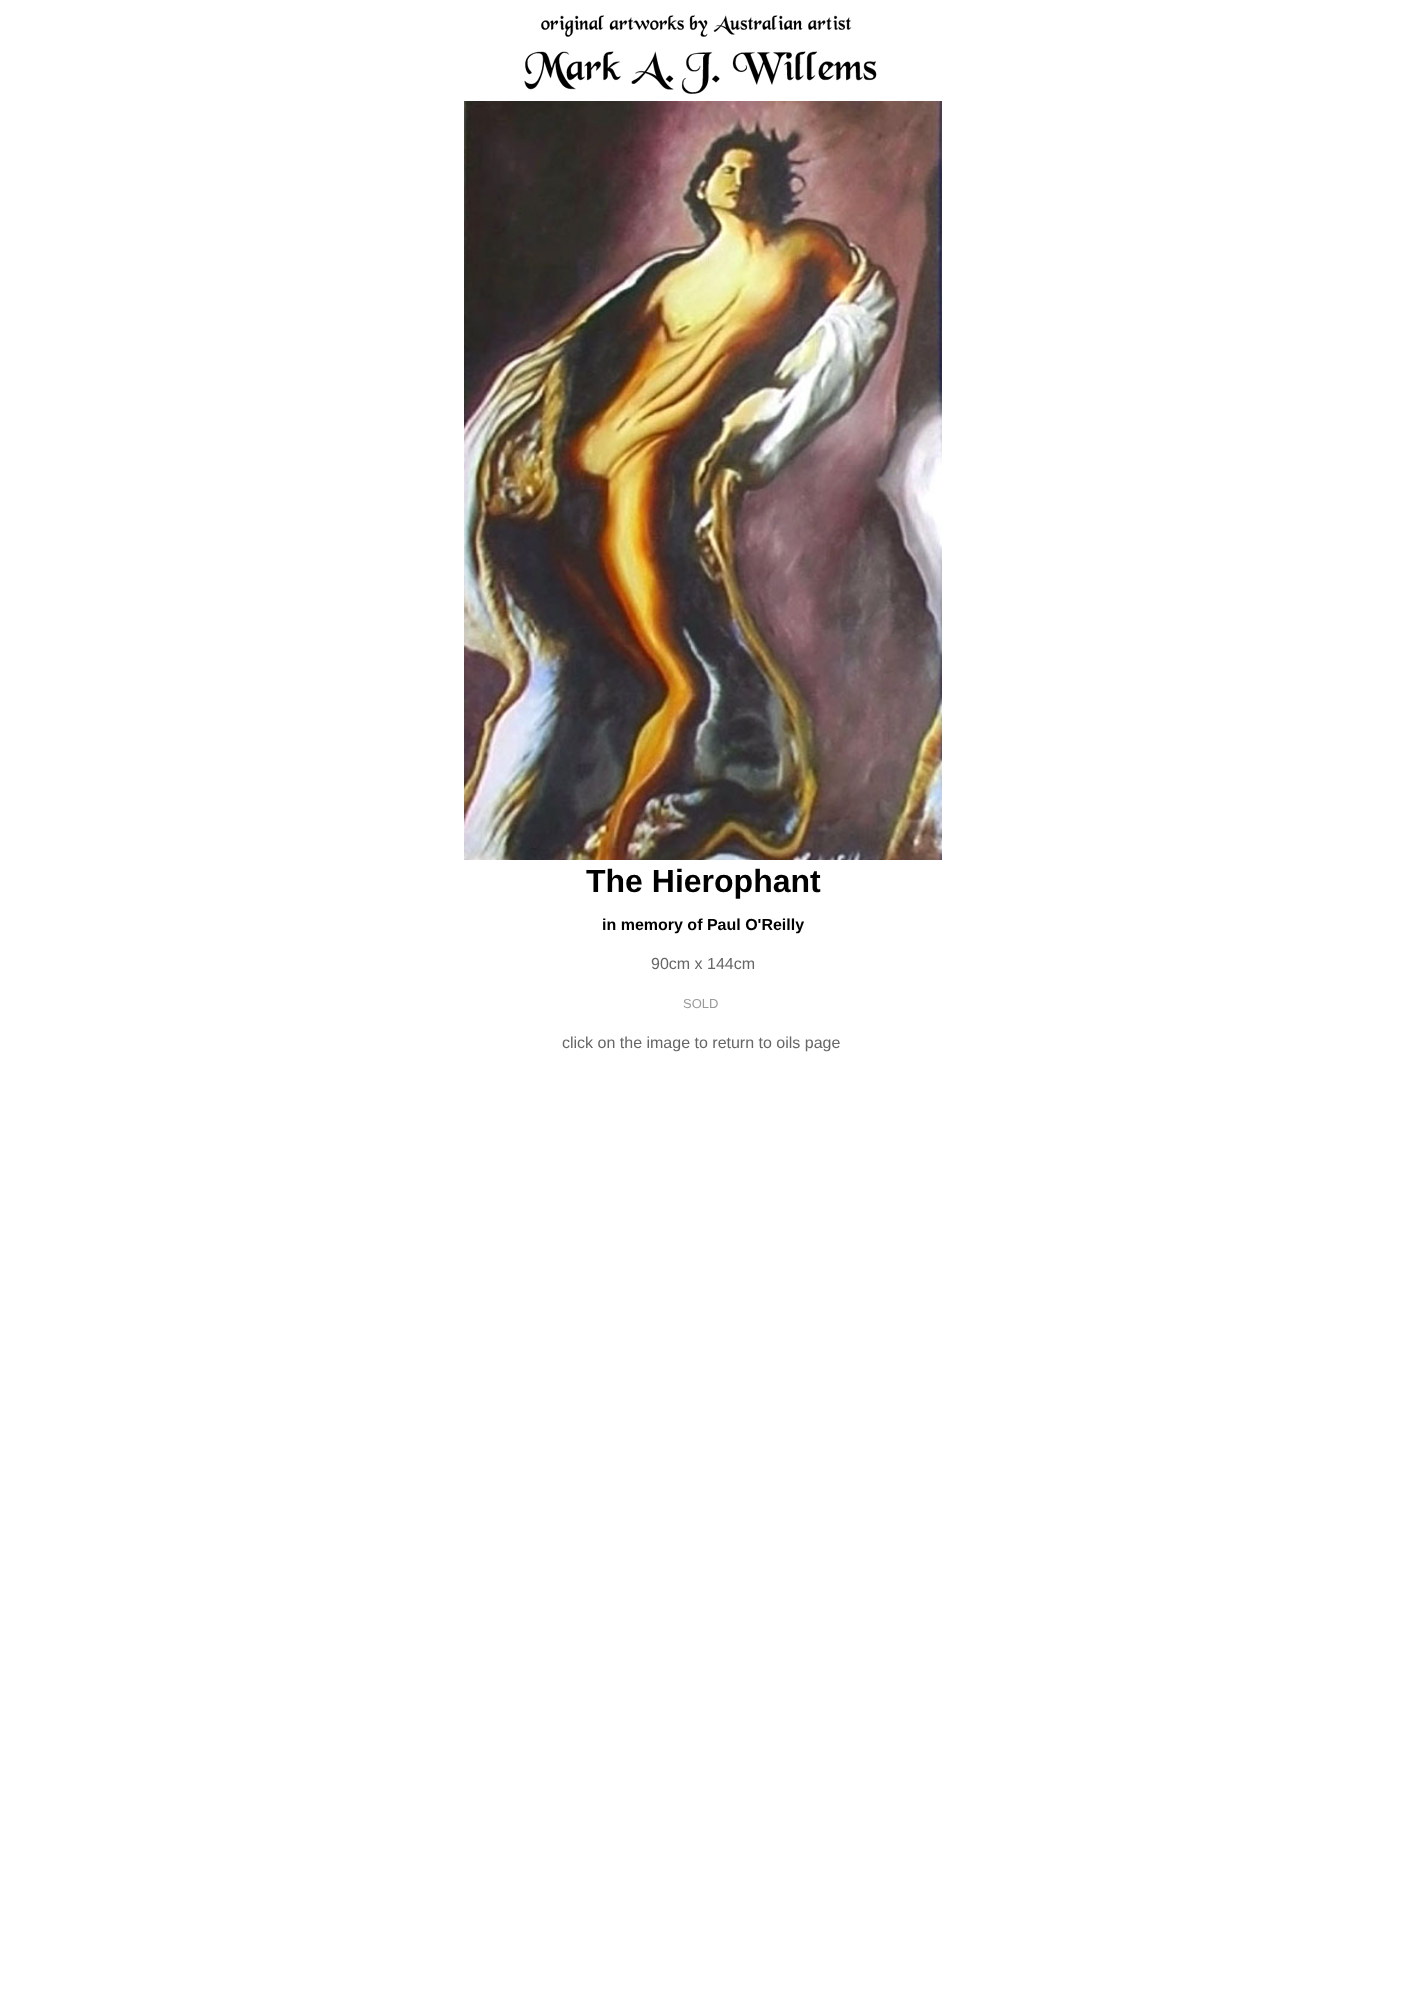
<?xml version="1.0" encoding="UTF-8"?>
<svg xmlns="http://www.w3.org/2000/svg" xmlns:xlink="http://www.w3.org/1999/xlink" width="1402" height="2003">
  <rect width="100%" height="100%" fill="#ffffff" />
  <image x="524" y="15" width="353" height="80" xlink:href="image1.png" />
  <image x="464" y="101" width="478" height="759" xlink:href="image2.png" />
  <text x="586" y="892" style="font-family: Liberation Sans; font-size: 32px; font-weight: bold; fill: #000000">The Hierophant</text>
  <text x="602" y="930" style="font-family: Liberation Sans; font-size: 16px; font-weight: bold; fill: #000000">in memory of Paul O'Reilly</text>
  <text x="651" y="969" style="font-family: Liberation Sans; font-size: 16px; fill: #666666">90cm x 144cm</text>
  <text x="683" y="1008" style="font-family: Liberation Sans; font-size: 13px; fill: #999999">SOLD</text>
  <text x="562" y="1048" style="font-family: Liberation Sans; font-size: 16px; fill: #666666">click on the image to return to oils page</text>
</svg>
